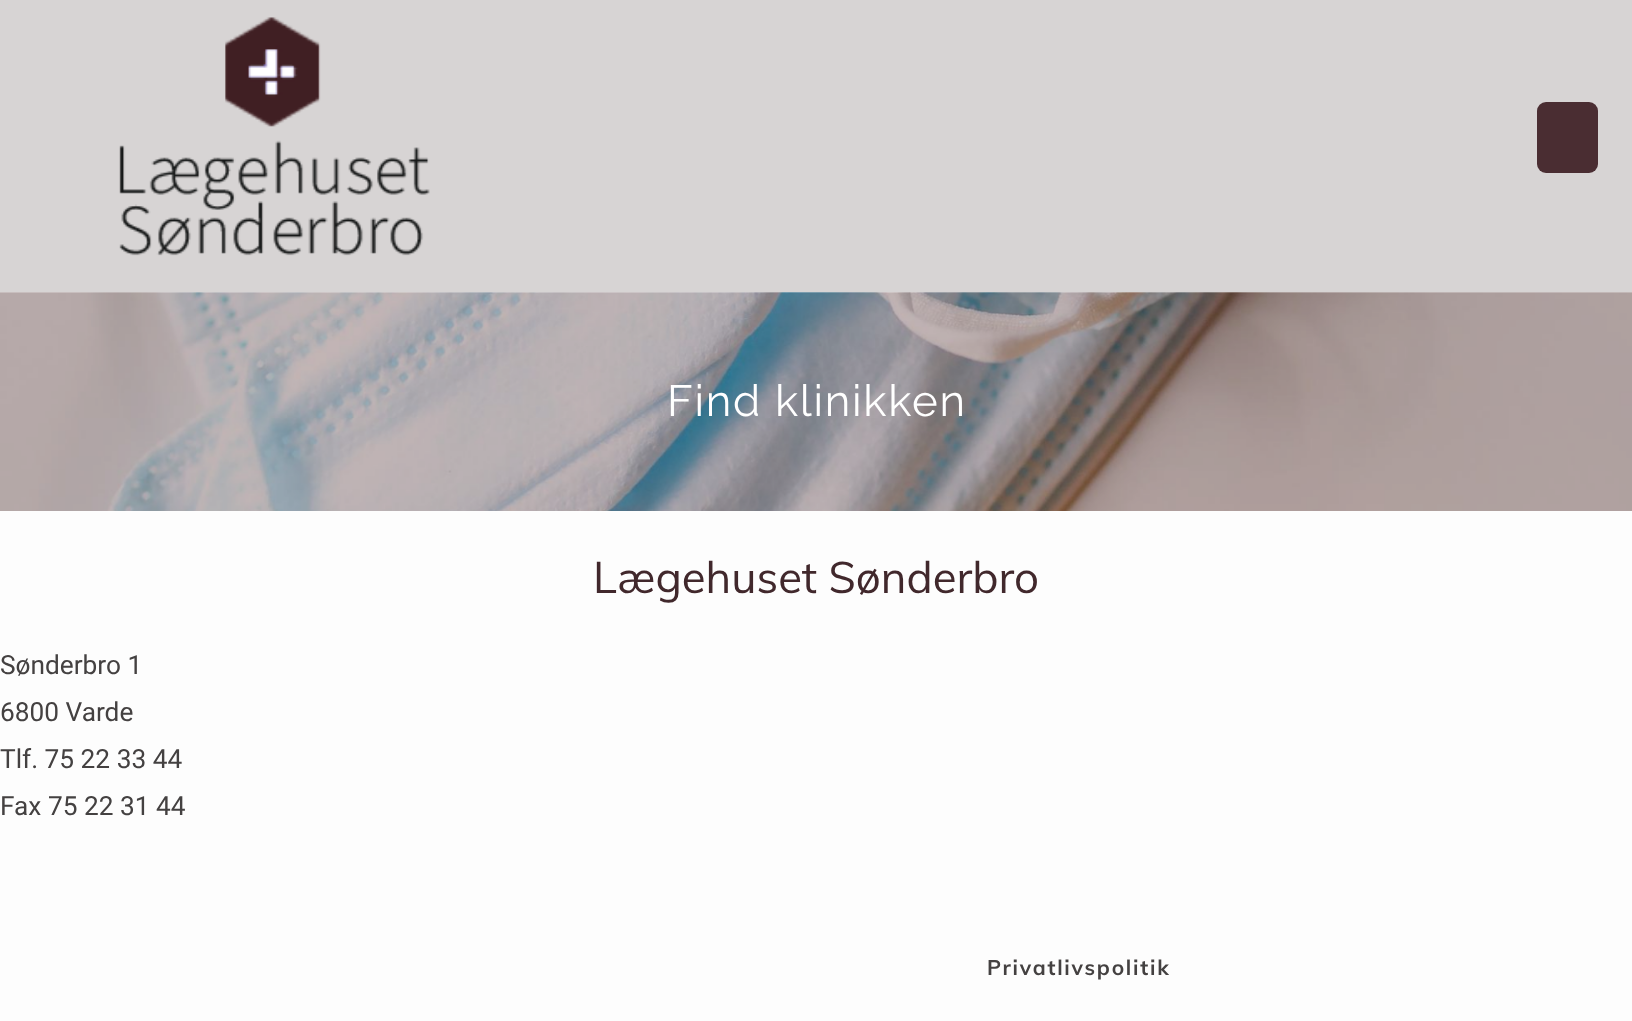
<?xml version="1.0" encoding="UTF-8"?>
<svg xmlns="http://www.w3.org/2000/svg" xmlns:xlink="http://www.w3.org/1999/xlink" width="1632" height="1021">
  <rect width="100%" height="100%" fill="#fdfdfd" />
  <rect width="1632" height="292" fill="#d7d4d4" />
  <image x="119" y="17" width="311" height="239" xlink:href="image1.png" />
  <rect x="1537" y="102" width="61" height="71" rx="9" fill="#4a2d32" />
  <image x="0" y="292" width="1632" height="219" xlink:href="image2.png" />
  <text x="667" y="416" style="font-family: Raleway; font-size: 43.75px; letter-spacing: 1.75px; fill: #ffffff">Find klinikken</text>
  <text x="593" y="593" style="font-family: Muli; font-size: 43.75px; fill: #41282c">Lægehuset Sønderbro</text>
  <text x="0" y="674" style="font-family: Roboto; font-size: 26.25px; fill: #444141">Sønderbro 1</text>
  <text x="0" y="721" style="font-family: Roboto; font-size: 26.25px; fill: #444141">6800 Varde</text>
  <text x="0" y="768" style="font-family: Roboto; font-size: 26.25px; fill: #444141">Tlf. 75 22 33 44</text>
  <text x="0" y="815" style="font-family: Roboto; font-size: 26.25px; fill: #444141">Fax 75 22 31 44</text>
  <text x="987" y="975" style="font-family: Muli; font-size: 21px; font-weight: bold; letter-spacing: 1.75px; fill: #444141">Privatlivspolitik</text>
</svg>
